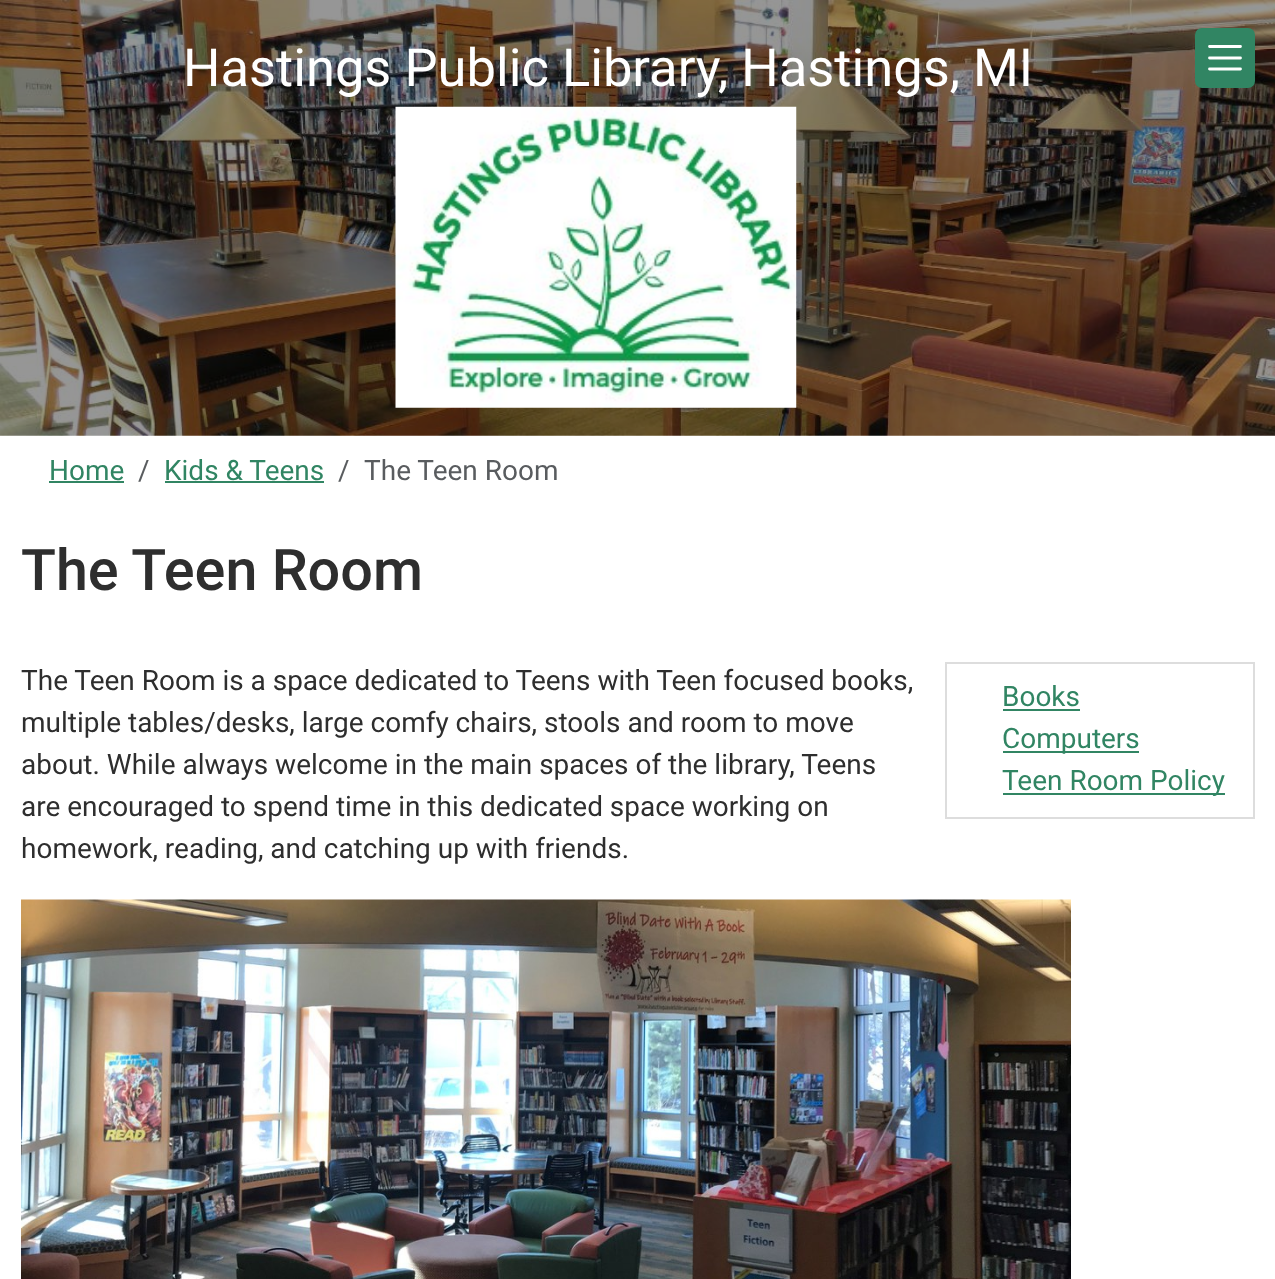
<?xml version="1.0" encoding="UTF-8"?>
<svg xmlns="http://www.w3.org/2000/svg" xmlns:xlink="http://www.w3.org/1999/xlink" width="1275" height="1279">
  <rect width="100%" height="100%" fill="#ffffff" />
  <image x="0" y="0" width="1275" height="436" xlink:href="image1.png" />
  <rect x="1195" y="28" width="60" height="60" rx="7" fill="#318563" />
  <path d="M 1209.5 46.5 h 31 m -31 11.5 h 31 m -31 11 h 31" fill="none" stroke="#ffffff" stroke-width="2.8" stroke-linecap="round" />
  <image x="395" y="106" width="402" height="302" xlink:href="image2.png" />
  <rect x="49" y="481" width="75" height="2" fill="#318563" />
  <rect x="165" y="481" width="159" height="2" fill="#318563" />
  <rect x="946" y="663" width="308" height="155" fill="none" stroke="#dddddd" stroke-width="2" />
  <rect x="1003" y="709" width="77" height="2" fill="#318563" />
  <rect x="1003" y="751" width="136" height="2" fill="#318563" />
  <rect x="1003" y="793" width="222" height="2" fill="#318563" />
  <image x="21" y="899" width="1050" height="380" xlink:href="image3.png" />
  <text x="183" y="86" style="font-family: Roboto; font-size: 52.5px; fill: #ffffff">Hastings Public Library, Hastings, MI</text>
  <text x="49" y="480" style="font-family: Roboto; font-size: 28px; fill: #318563">Home</text>
  <text x="138" y="480" style="font-family: Roboto; font-size: 28px; fill: #595c5f">/</text>
  <text x="164" y="480" style="font-family: Roboto; font-size: 28px; fill: #318563">Kids &amp; Teens</text>
  <text x="338" y="480" style="font-family: Roboto; font-size: 28px; fill: #595c5f">/</text>
  <text x="364" y="480" style="font-family: Roboto; font-size: 28px; fill: #595c5f">The Teen Room</text>
  <text x="21" y="590" style="font-family: Roboto; font-size: 57.5px; font-weight: 500; fill: #2e2e2e">The Teen Room</text>
  <text x="21" y="690" style="font-family: Roboto; font-size: 28px; fill: #2e2e2e">The Teen Room is a space dedicated to Teens with Teen focused books,</text>
  <text x="21" y="732" style="font-family: Roboto; font-size: 28px; fill: #2e2e2e">multiple tables/desks, large comfy chairs, stools and room to move</text>
  <text x="21" y="774" style="font-family: Roboto; font-size: 28px; fill: #2e2e2e">about. While always welcome in the main spaces of the library, Teens</text>
  <text x="21" y="816" style="font-family: Roboto; font-size: 28px; fill: #2e2e2e">are encouraged to spend time in this dedicated space working on</text>
  <text x="21" y="858" style="font-family: Roboto; font-size: 28px; fill: #2e2e2e">homework, reading, and catching up with friends.</text>
  <text x="1002" y="706" style="font-family: Roboto; font-size: 28px; fill: #318563">Books</text>
  <text x="1002" y="748" style="font-family: Roboto; font-size: 28px; fill: #318563">Computers</text>
  <text x="1002" y="790" style="font-family: Roboto; font-size: 28px; fill: #318563">Teen Room Policy</text>
</svg>
